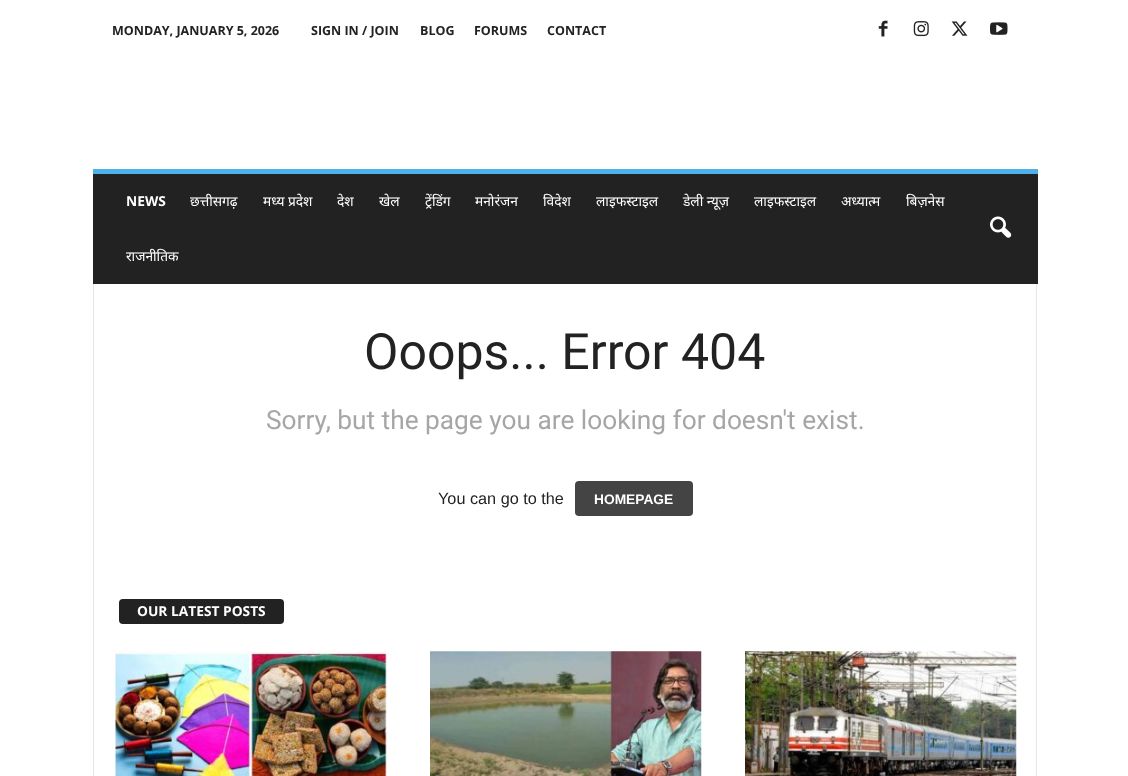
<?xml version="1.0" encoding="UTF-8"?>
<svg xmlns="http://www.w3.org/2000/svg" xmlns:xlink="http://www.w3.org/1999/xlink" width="1128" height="776">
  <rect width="100%" height="100%" fill="#ffffff" />
  <image x="878" y="20" width="10" height="17" xlink:href="image1.png" />
  <image x="913" y="21" width="16" height="16" xlink:href="image2.png" />
  <image x="951" y="21" width="17" height="15" xlink:href="image3.png" />
  <image x="990" y="22" width="18" height="13" xlink:href="image4.png" />
  <rect x="93" y="174" width="945" height="110" fill="#222222" />
  <rect x="93" y="169" width="945" height="5" fill="#4db2ec" />
  <image x="990" y="216" width="22" height="22" xlink:href="image5.png" />
  <rect x="93" y="284" width="1" height="492" fill="#e6e6e6" />
  <rect x="575" y="481" width="118" height="35" rx="4" fill="#444444" />
  <rect x="119" y="599" width="165" height="25" rx="4" fill="#222222" />
  <image x="115" y="651" width="272" height="125" xlink:href="image6.png" />
  <image x="430" y="651" width="272" height="125" xlink:href="image7.png" />
  <image x="745" y="651" width="272" height="125" xlink:href="image8.png" />
  <rect x="1036" y="284" width="1" height="492" fill="#e6e6e6" />
  <text x="112" y="35" style="font-family: Open Sans; font-size: 12.5px; font-weight: bold; fill: #222222">MONDAY, JANUARY 5, 2026</text>
  <text x="311" y="35" style="font-family: Open Sans; font-size: 12.5px; font-weight: bold; fill: #222222">SIGN IN / JOIN</text>
  <text x="420" y="35" style="font-family: Open Sans; font-size: 12.5px; font-weight: bold; fill: #222222">BLOG</text>
  <text x="474" y="35" style="font-family: Open Sans; font-size: 12.5px; font-weight: bold; fill: #222222">FORUMS</text>
  <text x="547" y="35" style="font-family: Open Sans; font-size: 12.5px; font-weight: bold; fill: #222222">CONTACT</text>
  <text x="126" y="206" style="font-family: Open Sans; font-size: 13.75px; font-weight: bold; fill: #ffffff">NEWS</text>
  <text x="190" y="206" style="font-family: Noto Sans; font-size: 13.75px; fill: #ffffff">छत्तीसगढ़</text>
  <text x="263" y="206" style="font-family: Noto Sans; font-size: 13.75px; fill: #ffffff">मध्य प्रदेश</text>
  <text x="337" y="206" style="font-family: Noto Sans; font-size: 13.75px; fill: #ffffff">देश</text>
  <text x="379" y="206" style="font-family: Noto Sans; font-size: 13.75px; fill: #ffffff">खेल</text>
  <text x="425" y="206" style="font-family: Noto Sans; font-size: 13.75px; fill: #ffffff">ट्रेंडिंग</text>
  <text x="475" y="206" style="font-family: Noto Sans; font-size: 13.75px; fill: #ffffff">मनोरंजन</text>
  <text x="543" y="206" style="font-family: Noto Sans; font-size: 13.75px; fill: #ffffff">विदेश</text>
  <text x="596" y="206" style="font-family: Noto Sans; font-size: 13.75px; fill: #ffffff">लाइफस्टाइल</text>
  <text x="683" y="206" style="font-family: Noto Sans; font-size: 13.75px; fill: #ffffff">डेली न्यूज़</text>
  <text x="754" y="206" style="font-family: Noto Sans; font-size: 13.75px; fill: #ffffff">लाइफस्टाइल</text>
  <text x="841" y="206" style="font-family: Noto Sans; font-size: 13.75px; fill: #ffffff">अध्यात्म</text>
  <text x="906" y="206" style="font-family: Noto Sans; font-size: 13.75px; fill: #ffffff">बिज़नेस</text>
  <text x="126" y="261" style="font-family: Noto Sans; font-size: 13.75px; fill: #ffffff">राजनीतिक</text>
  <text x="364" y="369" style="font-family: Roboto; font-size: 50px; fill: #222222">Ooops... Error 404</text>
  <text x="266" y="429" style="font-family: Roboto; font-size: 26.25px; fill: #a6a6a6">Sorry, but the page you are looking for doesn't exist.</text>
  <text x="438" y="504" style="font-family: Liberation Sans; font-size: 16.25px; fill: #222222">You can go to the</text>
  <text x="594" y="504" style="font-family: Liberation Sans; font-size: 13.75px; font-weight: bold; fill: #ffffff">HOMEPAGE</text>
  <text x="137" y="616" style="font-family: Open Sans; font-size: 13.75px; font-weight: bold; fill: #ffffff">OUR LATEST POSTS</text>
</svg>
